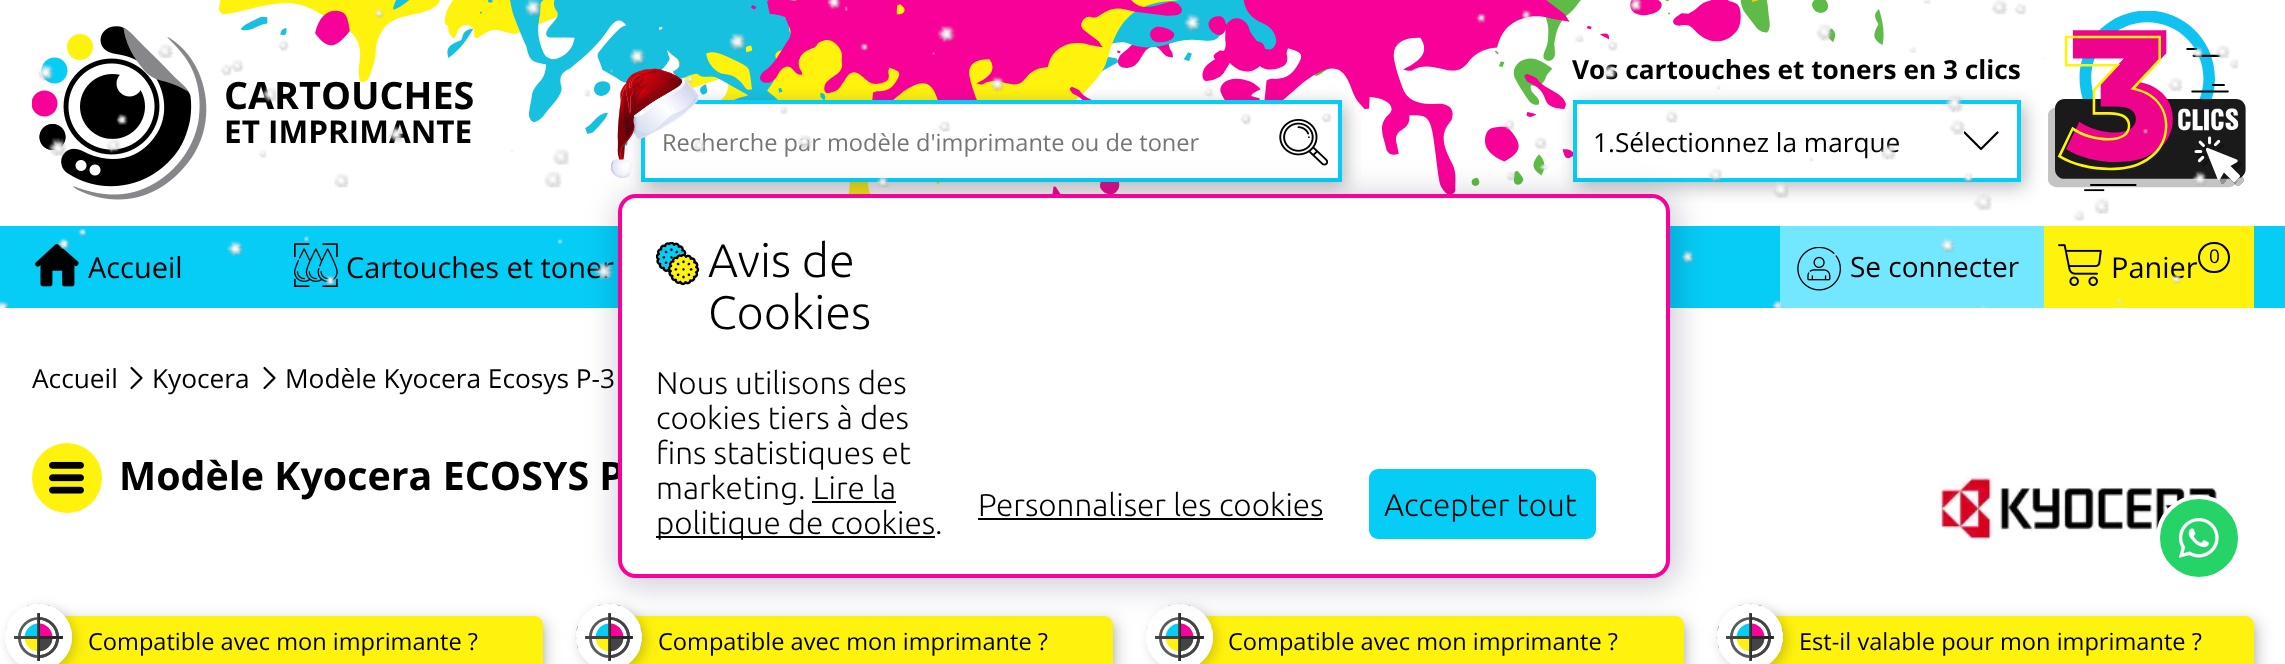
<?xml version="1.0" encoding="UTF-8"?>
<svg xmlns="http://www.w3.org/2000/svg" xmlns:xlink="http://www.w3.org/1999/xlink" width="2285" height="664">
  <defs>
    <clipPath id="clip1"><rect x="1964" y="123" width="35" height="35" /></clipPath>
  </defs>
  <rect width="100%" height="100%" fill="#ffffff" />
  <image x="219" y="0" width="1665" height="194" xlink:href="image2.png" />
  <image x="32" y="26" width="175" height="174" xlink:href="image3.png" />
  <rect x="644" y="105" width="702" height="82" fill="#4b5056" fill-opacity="0.4" filter="blur(9px)" />
  <rect x="643" y="102" width="697" height="78" fill="#ffffff" stroke="#06cdf6" stroke-width="4" />
  <image x="1279" y="119" width="49" height="47" xlink:href="image5.png" />
  <image x="2048" y="11" width="198" height="181" xlink:href="image6.png" />
  <rect x="1577" y="105" width="448" height="82" fill="#4b5056" fill-opacity="0.4" filter="blur(9px)" />
  <rect x="1575" y="102" width="444" height="78" fill="#ffffff" stroke="#06cdf6" stroke-width="4" />
  <g clip-path="url(#clip1)">
    <path d="M 1997.5 132.5 l -16.5 16.5 l -16.5 -16.5" fill="none" stroke="#000000" stroke-width="2.2" stroke-linecap="round" stroke-linejoin="round" />
  </g>
  <rect y="226" width="2285" height="82" fill="#06cdf6" />
  <image x="35" y="244" width="44" height="43" xlink:href="image7.png" />
  <image x="294" y="243" width="44" height="44" xlink:href="image8.png" />
  <rect x="1780" y="226" width="264" height="82" fill="#72e7ff" />
  <image x="1797" y="247" width="44" height="44" xlink:href="image9.png" />
  <rect x="2044" y="226" width="210" height="82" fill="#fff20d" />
  <image x="2058" y="244" width="44" height="43" xlink:href="image10.png" />
  <rect x="2199" y="243" width="30" height="29" rx="14.5" fill="none" stroke="#000000" stroke-width="2" />
  <path d="M 131.5 368 l 10 10 l -10 10" fill="none" stroke="#000000" stroke-width="2.2" stroke-linecap="round" stroke-linejoin="round" />
  <path d="M 264.5 368 l 10 10 l -10 10" fill="none" stroke="#000000" stroke-width="2.2" stroke-linecap="round" stroke-linejoin="round" />
  <circle cx="67" cy="478" r="35" fill="#fff20d" />
  <image x="49" y="461" width="35" height="33" xlink:href="image12.png" />
  <image x="1937" y="469" width="281" height="73" xlink:href="image13.png" />
  <rect x="35" y="620" width="511" height="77" rx="9" fill="#000000" fill-opacity="0.2" filter="blur(8px)" />
  <rect x="32" y="621" width="511" height="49" rx="9" fill="#000000" fill-opacity="0.13" filter="blur(3.5px)" />
  <path d="M 32 616 h 502 c 5 0 9 4 9 9 v 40 h -511 z" fill="#fff20d" />
  <rect x="9" y="607" width="66" height="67" rx="33" fill="#000000" fill-opacity="0.18" filter="blur(6px)" />
  <rect x="5" y="604" width="67" height="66" rx="33" fill="#ffffff" />
  <image x="5" y="603" width="67" height="58" xlink:href="image14.png" />
  <rect x="9.5" y="608.5" width="58" height="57" rx="28.5" fill="none" stroke="#ffffff" stroke-width="9" />
  <rect x="606" y="620" width="511" height="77" rx="9" fill="#000000" fill-opacity="0.2" filter="blur(8px)" />
  <rect x="602" y="621" width="511" height="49" rx="9" fill="#000000" fill-opacity="0.13" filter="blur(3.5px)" />
  <path d="M 602 616 h 502 c 5 0 9 4 9 9 v 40 h -511 z" fill="#fff20d" />
  <rect x="579" y="607" width="67" height="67" rx="33.5" fill="#000000" fill-opacity="0.18" filter="blur(6px)" />
  <circle cx="609" cy="637" r="33" fill="#ffffff" />
  <image x="575" y="603" width="68" height="58" xlink:href="image15.png" />
  <circle cx="609" cy="637" r="28.5" fill="none" stroke="#ffffff" stroke-width="9" />
  <rect x="1176" y="620" width="511" height="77" rx="9" fill="#000000" fill-opacity="0.2" filter="blur(8px)" />
  <rect x="1173" y="621" width="511" height="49" rx="9" fill="#000000" fill-opacity="0.13" filter="blur(3.5px)" />
  <path d="M 1173 616 h 502 c 5 0 9 4 9 9 v 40 h -511 z" fill="#fff20d" />
  <rect x="1150" y="607" width="66" height="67" rx="33" fill="#000000" fill-opacity="0.18" filter="blur(6px)" />
  <rect x="1146" y="604" width="67" height="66" rx="33" fill="#ffffff" />
  <image x="1146" y="603" width="67" height="58" xlink:href="image14.png" />
  <rect x="1150.5" y="608.5" width="58" height="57" rx="28.5" fill="none" stroke="#ffffff" stroke-width="9" />
  <rect x="1747" y="620" width="511" height="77" rx="9" fill="#000000" fill-opacity="0.2" filter="blur(8px)" />
  <rect x="1743" y="621" width="511" height="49" rx="9" fill="#000000" fill-opacity="0.13" filter="blur(3.5px)" />
  <path d="M 1743 616 h 502 c 5 0 9 4 9 9 v 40 h -511 z" fill="#fff20d" />
  <rect x="1720" y="607" width="67" height="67" rx="33.5" fill="#000000" fill-opacity="0.18" filter="blur(6px)" />
  <circle cx="1750" cy="637" r="33" fill="#ffffff" />
  <image x="1716" y="603" width="68" height="58" xlink:href="image15.png" />
  <circle cx="1750" cy="637" r="28.5" fill="none" stroke="#ffffff" stroke-width="9" />
  <circle cx="2199" cy="538" r="41" fill="#25d366" stroke="#ffffff" stroke-width="4" />
  <image x="2179" y="518" width="40" height="40" xlink:href="image16.png" />
  <text x="224" y="109" style="font-family: Open Sans; font-size: 37.75px; font-weight: bold; fill: #000000">CARTOUCHES</text>
  <text x="224" y="143" style="font-family: Open Sans; font-size: 31.5px; font-weight: bold; fill: #000000">ET IMPRIMANTE</text>
  <text x="662" y="151" style="font-family: Open Sans; font-size: 23.6px; fill: #757575">Recherche par modèle d'imprimante ou de toner</text>
  <image x="611" y="68" width="87" height="110" xlink:href="image4.png" />
  <text x="1572" y="79" style="font-family: Open Sans; font-size: 26.25px; font-weight: bold; fill: #000000">Vos cartouches et toners en 3 clics</text>
  <text x="1593" y="152" style="font-family: Open Sans; font-size: 26.25px; fill: #000000">1.Sélectionnez la marque</text>
  <text x="88" y="278" style="font-family: Open Sans; font-size: 28.9px; fill: #000000">Accueil</text>
  <text x="346" y="278" style="font-family: Open Sans; font-size: 28.9px; fill: #000000">Cartouches et toner</text>
  <text x="1850" y="277" style="font-family: Open Sans; font-size: 28px; fill: #000000">Se connecter</text>
  <text x="2111" y="278" style="font-family: Open Sans; font-size: 28.9px; fill: #000000">Panier</text>
  <text x="2209" y="263" style="font-family: Open Sans; font-size: 19px; fill: #000000">0</text>
  <image x="0" y="0" width="2239" height="308" xlink:href="image1.png" />
  <rect x="618" y="196" width="1059" height="390" rx="21" fill="#000032" fill-opacity="0.2" filter="blur(16px)" />
  <text x="32" y="388" style="font-family: Open Sans; font-size: 26.25px; fill: #000000">Accueil</text>
  <text x="152" y="388" style="font-family: Open Sans; font-size: 26.25px; fill: #000000">Kyocera</text>
  <text x="285" y="388" style="font-family: Open Sans; font-size: 26.25px; fill: #000000">Modèle Kyocera Ecosys P-3</text>
  <text x="119" y="490" style="font-family: Open Sans; font-size: 39.4px; font-weight: bold; fill: #000000">Modèle Kyocera ECOSYS P</text>
  <rect x="620" y="196" width="1048" height="380" rx="16" fill="#ffffff" stroke="#f80198" stroke-width="4" />
  <image x="656" y="242" width="44" height="43" xlink:href="image11.png" />
  <text x="708" y="329" style="font-family: Ubuntu; font-size: 47px; font-weight: 300; fill: #000000">Cookies</text>
  <text x="708" y="277" style="font-family: Ubuntu; font-size: 47px; font-weight: 300; fill: #000000">Avis de</text>
  <rect x="1369" y="469" width="227" height="70" rx="9" fill="#06cdf6" />
  <text x="1384" y="516" style="font-family: Ubuntu; font-size: 31.5px; font-weight: 300; fill: #000000">Accepter tout</text>
  <text x="978" y="516" style="font-family: Ubuntu; font-size: 31.5px; font-weight: 300; fill: #000000">Personnaliser les cookies</text>
  <rect x="978" y="518" width="345" height="2" fill="#000000" />
  <rect x="656" y="536" width="279" height="2" fill="#000000" />
  <text x="656" y="534" style="font-family: Ubuntu; font-size: 31.5px; font-weight: 300; fill: #000000">politique de cookies.</text>
  <rect x="812" y="501" width="84" height="2" fill="#000000" />
  <text x="656" y="499" style="font-family: Ubuntu; font-size: 31.5px; font-weight: 300; fill: #000000">marketing. Lire la</text>
  <text x="656" y="464" style="font-family: Ubuntu; font-size: 31.5px; font-weight: 300; fill: #000000">fins statistiques et</text>
  <text x="656" y="429" style="font-family: Ubuntu; font-size: 31.5px; font-weight: 300; fill: #000000">cookies tiers à des</text>
  <text x="656" y="394" style="font-family: Ubuntu; font-size: 31.5px; font-weight: 300; fill: #000000">Nous utilisons des</text>
  <text x="88" y="650" style="font-family: Open Sans; font-size: 23.6px; fill: #000000">Compatible avec mon imprimante ?</text>
  <text x="658" y="650" style="font-family: Open Sans; font-size: 23.6px; fill: #000000">Compatible avec mon imprimante ?</text>
  <text x="1228" y="650" style="font-family: Open Sans; font-size: 23.6px; fill: #000000">Compatible avec mon imprimante ?</text>
  <text x="1799" y="650" style="font-family: Open Sans; font-size: 23.6px; fill: #000000">Est-il valable pour mon imprimante ?</text>
</svg>
